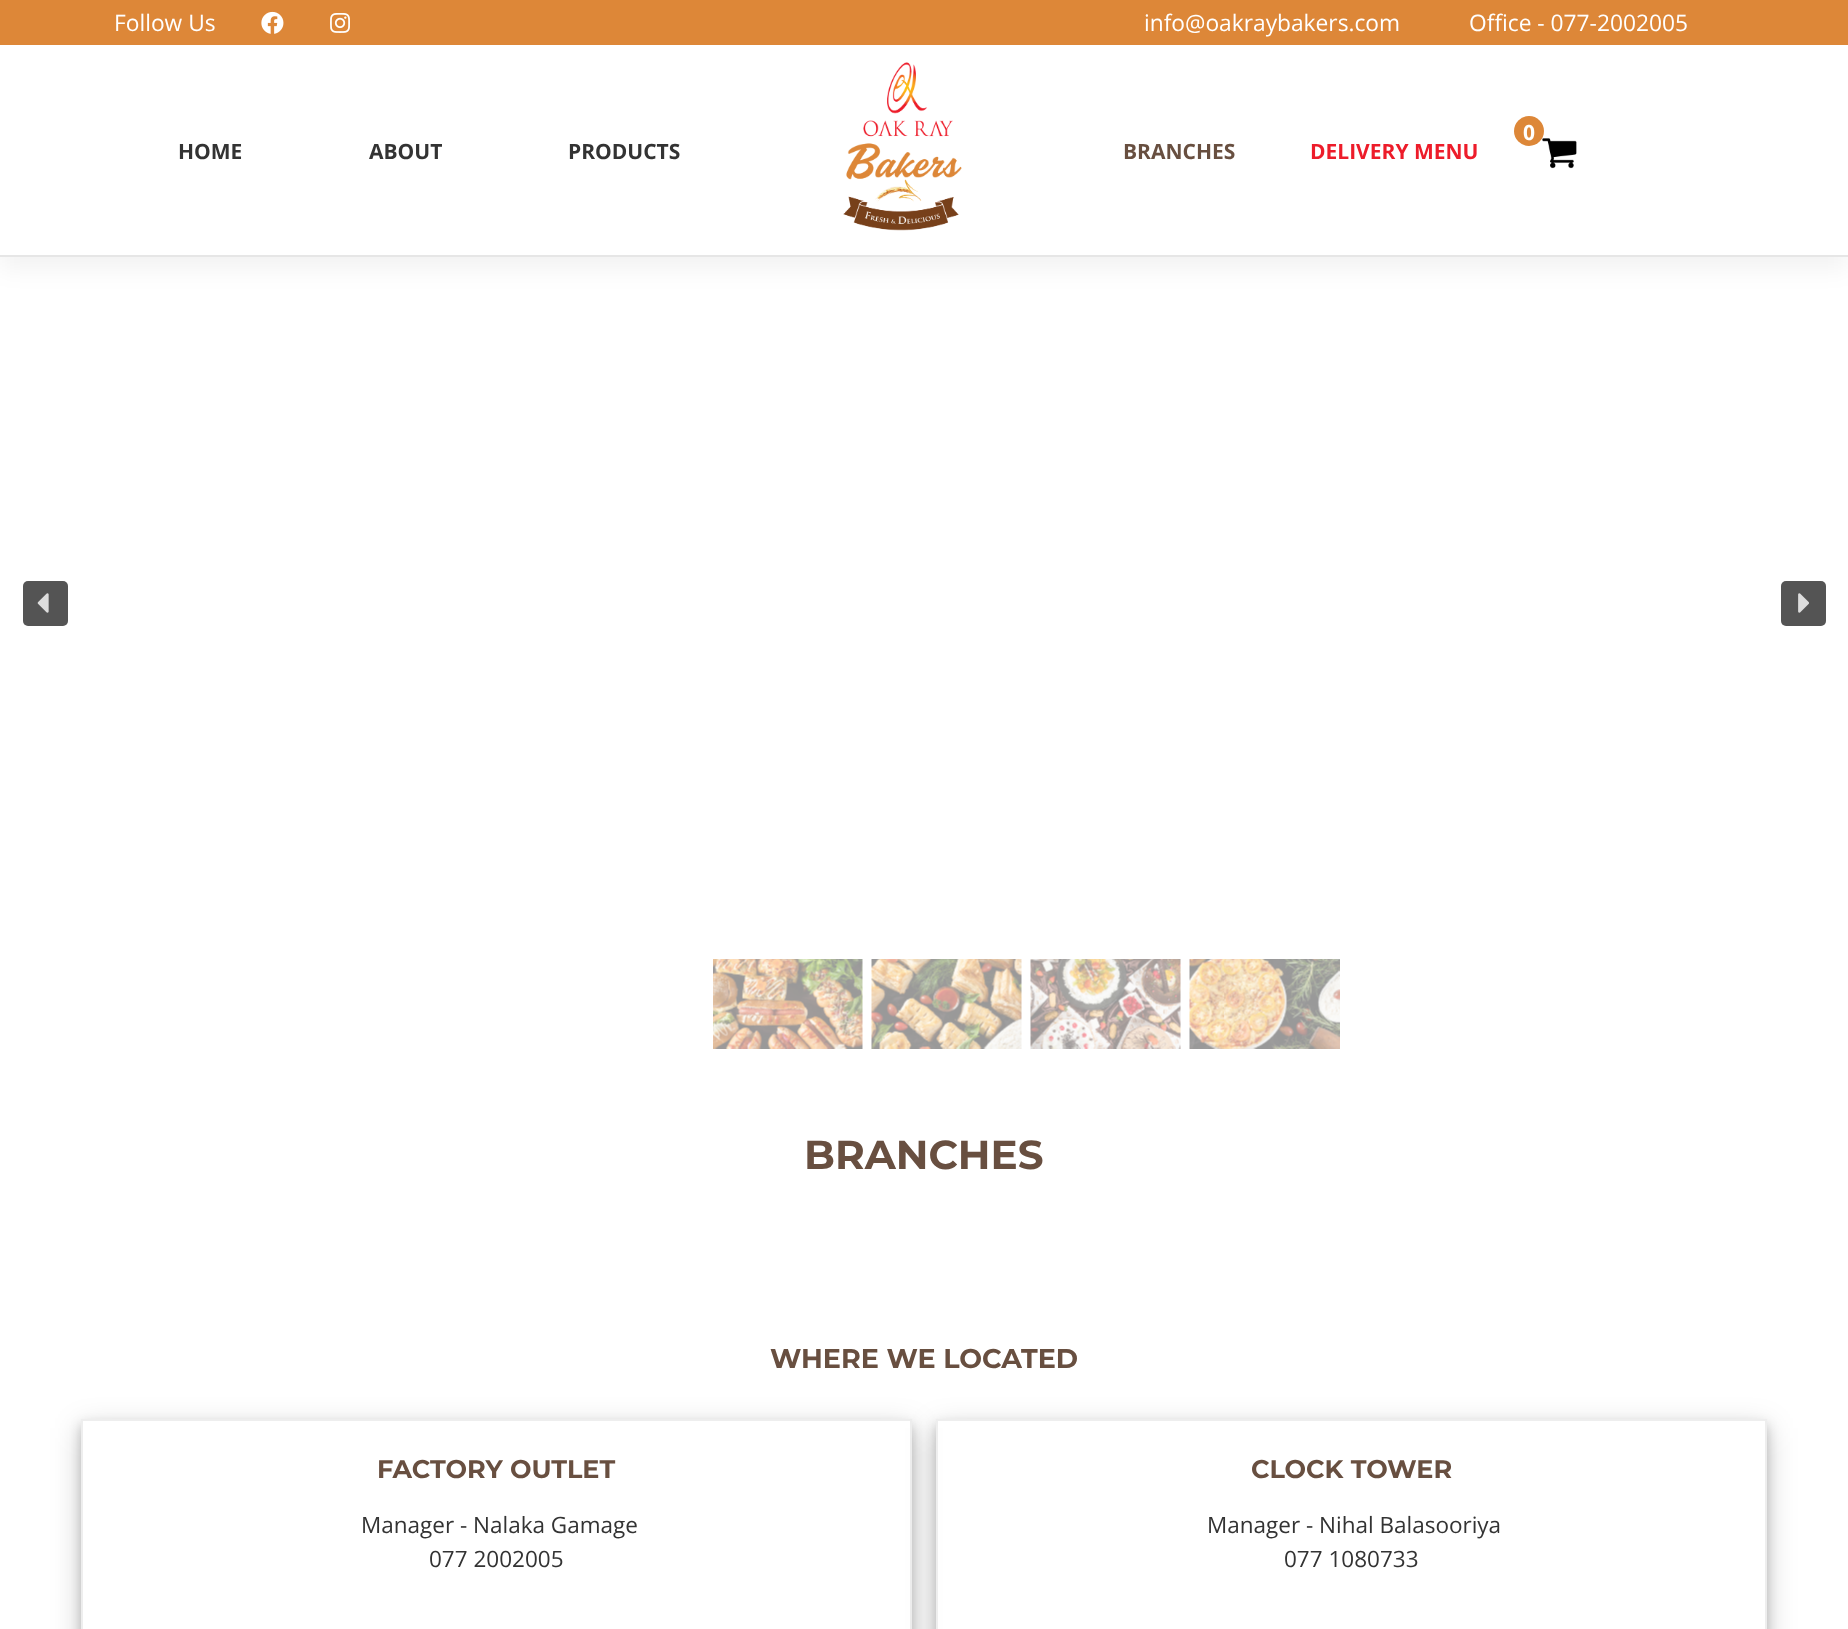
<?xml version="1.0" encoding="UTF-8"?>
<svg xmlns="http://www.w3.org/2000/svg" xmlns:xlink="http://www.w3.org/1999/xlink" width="1848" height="1629">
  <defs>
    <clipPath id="clip1"><path d="M 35 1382 h 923 v 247 h -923 z m 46 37 h 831 v 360 h -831 z" clip-rule="evenodd" /></clipPath>
    <clipPath id="clip2"><path d="M 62 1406 h 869 v 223 h -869 z m 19 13 h 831 v 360 h -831 z" clip-rule="evenodd" /></clipPath>
    <clipPath id="clip3"><path d="M 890 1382 h 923 v 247 h -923 z m 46 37 h 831 v 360 h -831 z" clip-rule="evenodd" /></clipPath>
    <clipPath id="clip4"><path d="M 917 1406 h 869 v 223 h -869 z m 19 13 h 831 v 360 h -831 z" clip-rule="evenodd" /></clipPath>
  </defs>
  <rect width="100%" height="100%" fill="#ffffff" />
  <rect y="12" width="1848" height="257" fill="#000000" fill-opacity="0.05" filter="blur(11.5px)" />
  <rect y="45" width="1848" height="210" fill="#ffffff" />
  <rect y="255" width="1848" height="2" fill="#e6e6e6" />
  <rect width="1848" height="45" fill="#dd8738" />
  <image x="261" y="11" width="23" height="23" xlink:href="image1.png" />
  <image x="330" y="13" width="20" height="20" xlink:href="image2.png" />
  <image x="843" y="62" width="119" height="169" xlink:href="image3.png" />
  <image x="1542" y="138" width="35" height="31" xlink:href="image4.png" />
  <circle cx="1529" cy="131" r="15" fill="#dd8738" />
  <rect x="23" y="581" width="45" height="45" rx="5" fill="#545454" />
  <image x="37" y="593" width="12" height="20" xlink:href="image5.png" />
  <rect x="1781" y="581" width="45" height="45" rx="5" fill="#545454" />
  <image x="1798" y="593" width="11" height="20" xlink:href="image6.png" />
  <image x="713" y="959" width="150" height="90" xlink:href="image7.png" />
  <image x="871" y="959" width="151" height="90" xlink:href="image8.png" />
  <image x="1030" y="959" width="151" height="90" xlink:href="image9.png" />
  <image x="1189" y="959" width="151" height="90" xlink:href="image10.png" />
  <g clip-path="url(#clip1)">
    <rect x="81" y="1428" width="831" height="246" fill="#000000" fill-opacity="0.19" filter="blur(15px)" />
  </g>
  <g clip-path="url(#clip2)">
    <rect x="81" y="1425" width="831" height="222" fill="#000000" fill-opacity="0.2" filter="blur(6px)" />
  </g>
  <rect x="82" y="1420" width="829" height="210" fill="none" stroke="#eeeeee" stroke-width="2" />
  <g clip-path="url(#clip3)">
    <rect x="936" y="1428" width="831" height="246" fill="#000000" fill-opacity="0.19" filter="blur(15px)" />
  </g>
  <g clip-path="url(#clip4)">
    <rect x="936" y="1425" width="831" height="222" fill="#000000" fill-opacity="0.2" filter="blur(6px)" />
  </g>
  <rect x="937" y="1420" width="829" height="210" fill="none" stroke="#eeeeee" stroke-width="2" />
  <text x="114" y="31" style="font-family: Open Sans; font-size: 22.75px; fill: #ffffff">Follow Us</text>
  <text x="1144" y="31" style="font-family: Open Sans; font-size: 22.75px; fill: #ffffff">info@oakraybakers.com</text>
  <text x="1469" y="31" style="font-family: Open Sans; font-size: 22.75px; fill: #ffffff">Office - 077-2002005</text>
  <text x="178" y="159" style="font-family: Open Sans; font-size: 21px; font-weight: bold; fill: #333333">HOME</text>
  <text x="369" y="159" style="font-family: Open Sans; font-size: 21px; font-weight: bold; fill: #333333">ABOUT</text>
  <text x="568" y="159" style="font-family: Open Sans; font-size: 21px; font-weight: bold; fill: #333333">PRODUCTS</text>
  <text x="1123" y="159" style="font-family: Open Sans; font-size: 21px; font-weight: bold; fill: #684f40">BRANCHES</text>
  <text x="1523" y="140" style="font-family: Open Sans; font-size: 21px; font-weight: bold; fill: #ffffff">0</text>
  <text x="1310" y="159" style="font-family: Open Sans; font-size: 21px; font-weight: bold; fill: #ed1c2a">DELIVERY MENU</text>
  <text x="804" y="1169" style="font-family: Montserrat; font-size: 40.5px; font-weight: bold; fill: #684f40">BRANCHES</text>
  <text x="770" y="1368" style="font-family: Montserrat; font-size: 27px; font-weight: bold; fill: #684f40">WHERE WE LOCATED</text>
  <text x="377" y="1478" style="font-family: Montserrat; font-size: 25.5px; font-weight: bold; fill: #684f40">FACTORY OUTLET</text>
  <text x="361" y="1533" style="font-family: Open Sans; font-size: 22.5px; fill: #333333">Manager - Nalaka Gamage</text>
  <text x="429" y="1567" style="font-family: Open Sans; font-size: 22.5px; fill: #333333">077 2002005</text>
  <text x="1251" y="1478" style="font-family: Montserrat; font-size: 25.5px; font-weight: bold; fill: #684f40">CLOCK TOWER</text>
  <text x="1207" y="1533" style="font-family: Open Sans; font-size: 22.5px; fill: #333333">Manager - Nihal Balasooriya</text>
  <text x="1284" y="1567" style="font-family: Open Sans; font-size: 22.5px; fill: #333333">077 1080733</text>
</svg>
